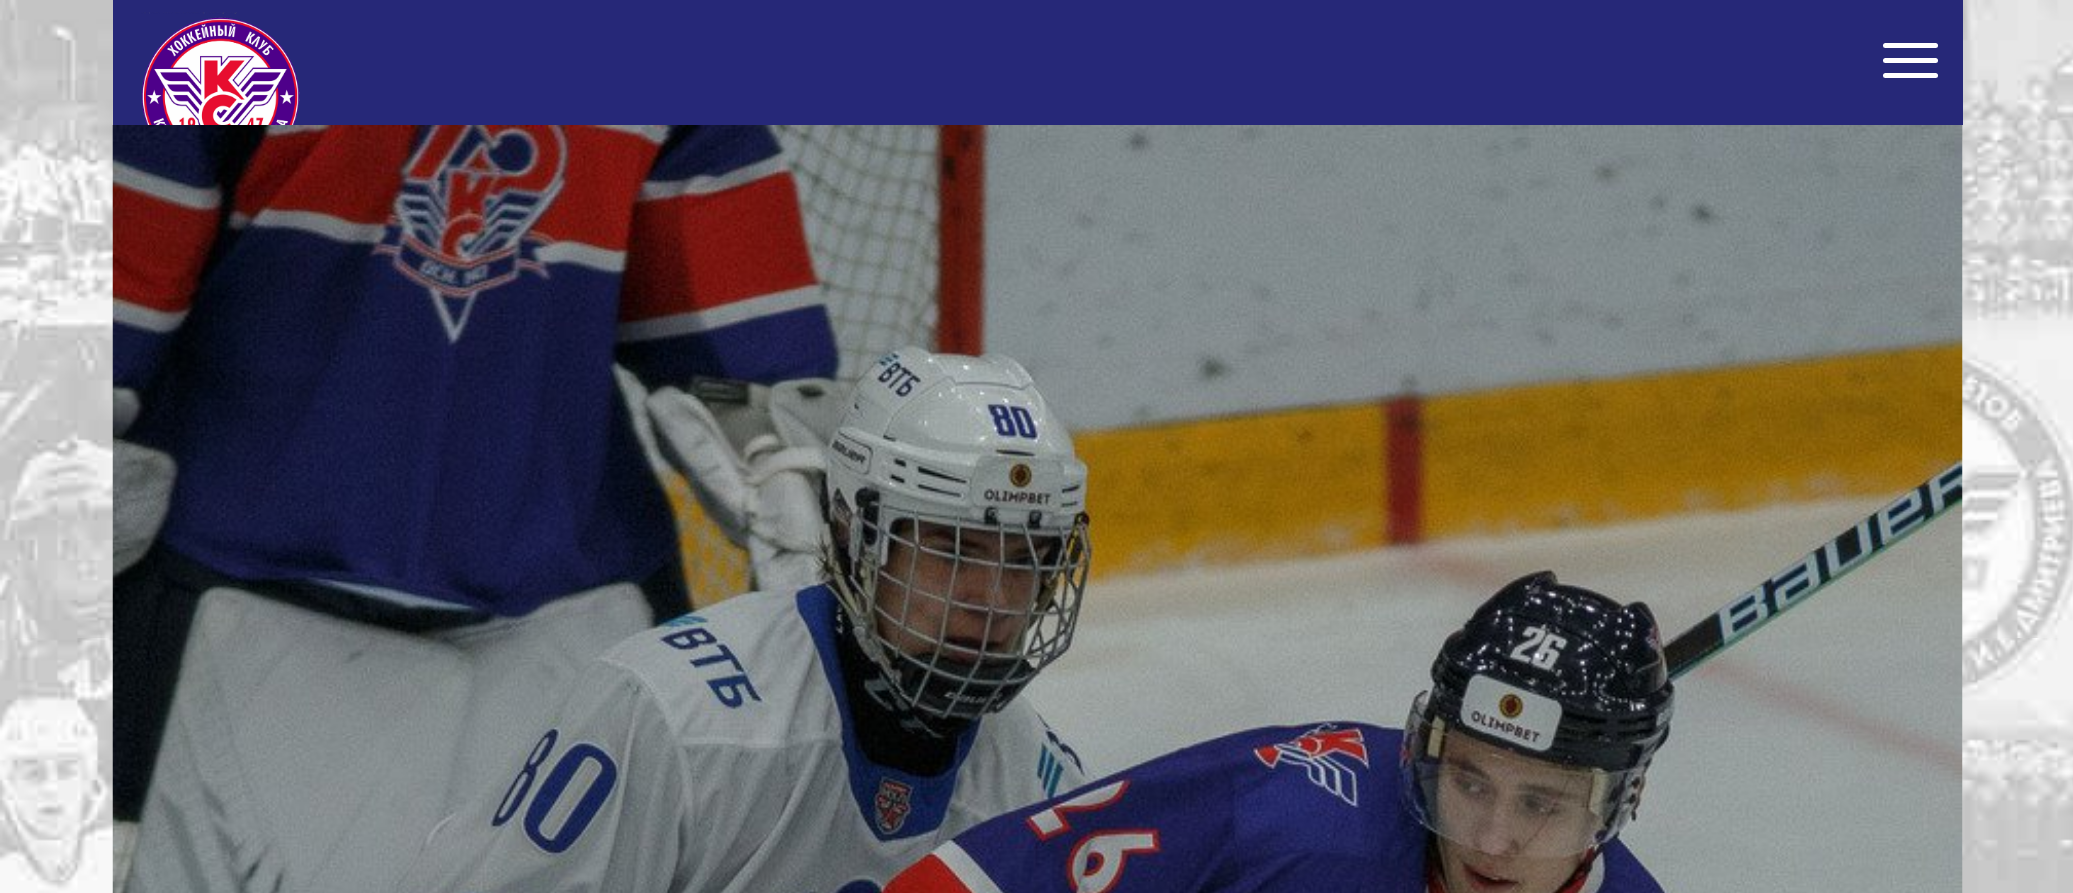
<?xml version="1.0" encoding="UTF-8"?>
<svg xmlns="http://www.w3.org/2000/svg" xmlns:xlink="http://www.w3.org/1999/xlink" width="2073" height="893">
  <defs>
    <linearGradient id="g1" gradientUnits="userSpaceOnUse" x1="1038" y1="150" x2="1038" y2="125"><stop offset="0" stop-color="#00001a" stop-opacity="0" /><stop offset="1" stop-color="#00001a" stop-opacity="0.06" /></linearGradient>
  </defs>
  <rect width="100%" height="100%" fill="#ffffff" />
  <image x="0" y="0" width="2073" height="893" xlink:href="image1.png" />
  <rect x="113" width="1850" height="125" fill="#262878" />
  <image x="141" y="12" width="159" height="113" xlink:href="image2.png" />
  <rect x="1883" y="43" width="55" height="5" rx="2.5" fill="#ffffff" />
  <rect x="1883" y="58" width="55" height="5" rx="2.5" fill="#ffffff" />
  <rect x="1883" y="73" width="55" height="5" rx="2.5" fill="#ffffff" />
  <rect x="1962" y="125" width="1" height="16" fill="url(#g1)" />
  <image x="112" y="125" width="1851" height="768" xlink:href="image3.png" />
</svg>
